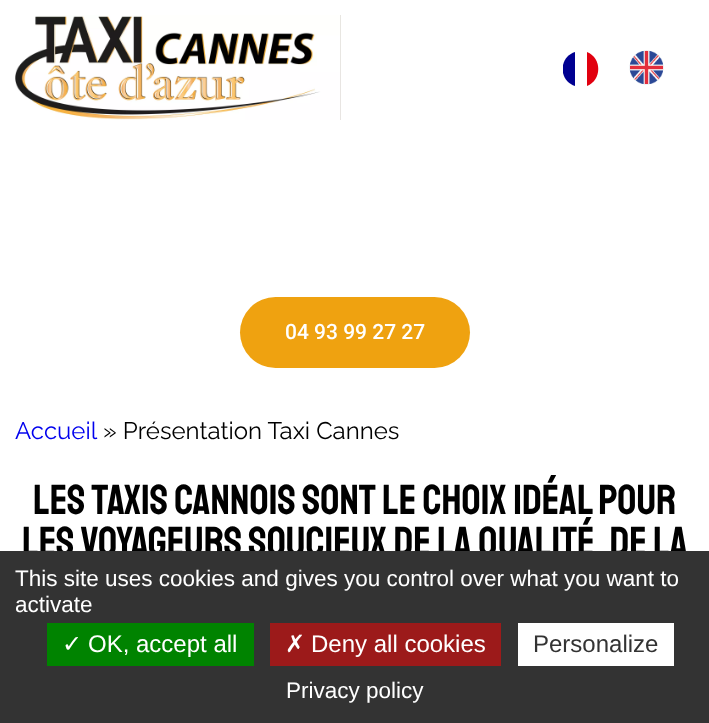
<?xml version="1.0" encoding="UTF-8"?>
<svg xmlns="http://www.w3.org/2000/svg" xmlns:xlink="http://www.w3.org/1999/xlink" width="709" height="723">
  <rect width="100%" height="100%" fill="#ffffff" />
  <rect x="340" y="15" width="1" height="105" fill="#d0ccc4" />
  <image x="15" y="15" width="326" height="105" xlink:href="image1.png" />
  <path d="M 563 65 c 1.5 -6.5 6 -11 12 -13 v 34 c -6 -2 -10.5 -6.5 -12 -13 z" fill="#000091" />
  <path d="M 587 52 c 15 6 15 28 0 34 z" fill="#e1000f" />
  <image x="629" y="50" width="35" height="35" xlink:href="image2.png" />
  <rect x="240" y="297" width="230" height="71" rx="35.5" fill="#efa210" />
  <text x="285" y="339" style="font-family: Roboto; font-size: 21px; font-weight: 500; fill: #ffffff">04 93 99 27 27</text>
  <text x="15" y="439" style="font-family: Raleway; font-size: 24px; fill: #0000ee">Accueil</text>
  <text x="103" y="439" style="font-family: Raleway; font-size: 24px; fill: #000000">» Présentation Taxi Cannes</text>
  <text x="33" y="514" style="font-family: Staatliches; font-size: 42px; fill: #000000">les taxis cannois sont le choix idéal pour</text>
  <text x="22" y="556" style="font-family: Staatliches; font-size: 42px; fill: #000000">les voyageurs soucieux de la qualité, de la</text>
  <rect y="551" width="709" height="172" fill="#333333" />
  <text x="15" y="586" style="font-family: Liberation Sans; font-size: 22.5px; fill: #ffffff">This site uses cookies and gives you control over what you want to</text>
  <text x="15" y="612" style="font-family: Liberation Sans; font-size: 22.5px; fill: #ffffff">activate</text>
  <rect x="47" y="623" width="207" height="43" fill="#008300" />
  <text x="62" y="652" style="font-family: DejaVu Sans; font-size: 24px; fill: #ffffff">✓</text>
  <text x="88" y="652" style="font-family: Liberation Sans; font-size: 24px; fill: #ffffff">OK, accept all</text>
  <rect x="270" y="623" width="231" height="43" fill="#9c1a1a" />
  <text x="285" y="652" style="font-family: DejaVu Sans; font-size: 24px; fill: #ffffff">✗</text>
  <text x="311" y="652" style="font-family: Liberation Sans; font-size: 24px; fill: #ffffff">Deny all cookies</text>
  <rect x="518" y="623" width="156" height="43" fill="#ffffff" />
  <text x="533" y="652" style="font-family: Liberation Sans; font-size: 24px; fill: #333333">Personalize</text>
  <text x="286" y="698" style="font-family: Liberation Sans; font-size: 22.5px; fill: #ffffff">Privacy policy</text>
</svg>
